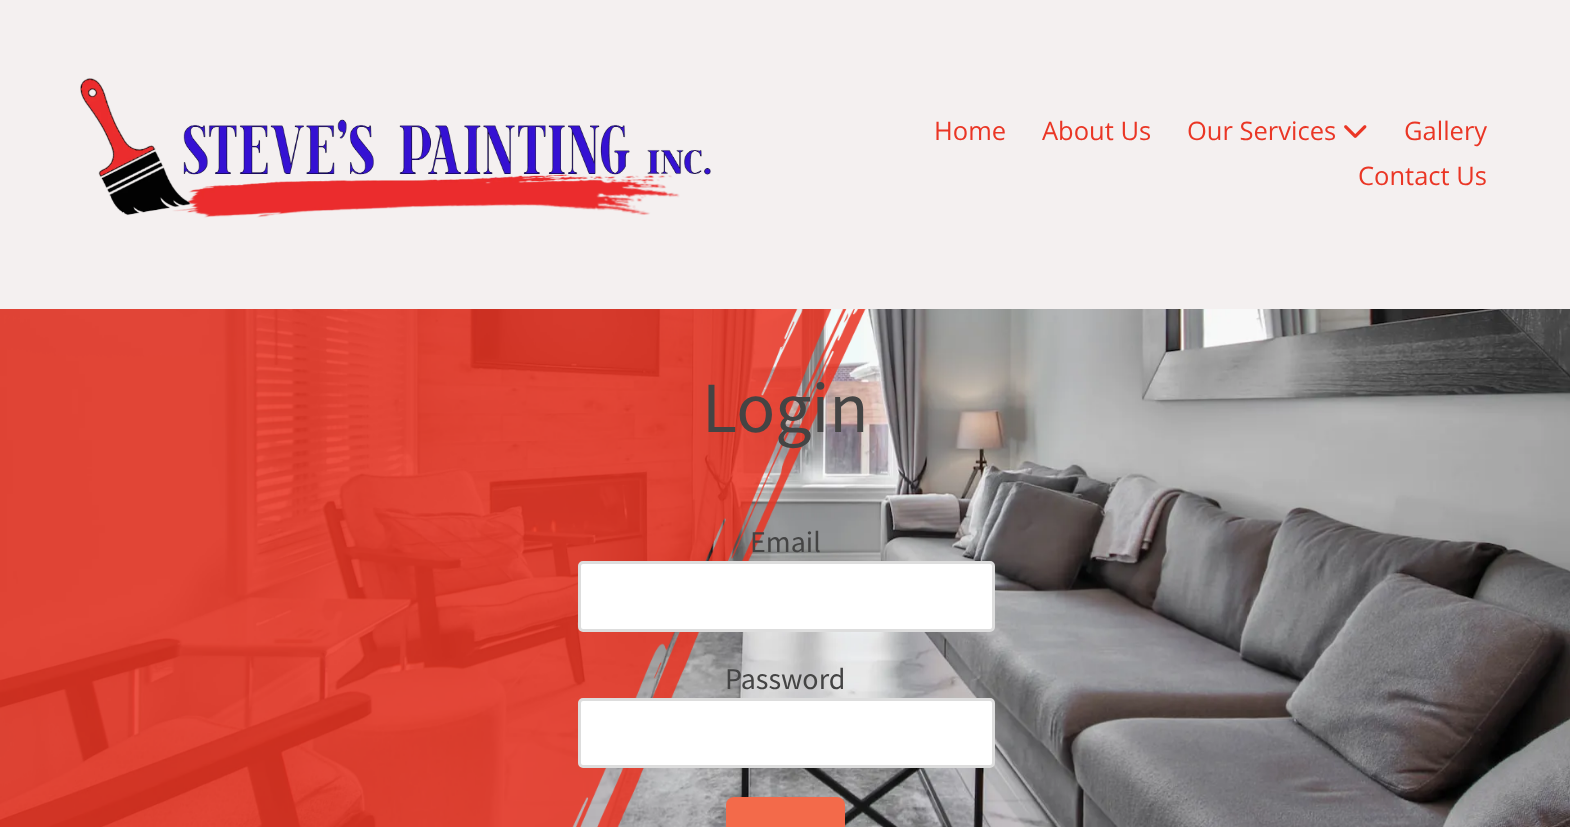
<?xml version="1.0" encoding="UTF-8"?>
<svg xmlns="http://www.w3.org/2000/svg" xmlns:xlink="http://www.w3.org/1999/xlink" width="1570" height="827">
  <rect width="100%" height="100%" fill="#ea3625" />
  <rect width="1570" height="309" fill="#f4f0f0" />
  <image x="80" y="78" width="631" height="140" xlink:href="image1.png" />
  <image x="1344" y="125" width="23" height="13" xlink:href="image2.png" />
  <image x="0" y="309" width="1570" height="518" xlink:href="image3.png" />
  <rect x="579.5" y="562.5" width="414" height="68" rx="3.5" fill="#ffffff" stroke="#dddddd" stroke-width="3" />
  <rect x="579.5" y="699.5" width="414" height="67" rx="3.5" fill="#ffffff" stroke="#dddddd" stroke-width="3" />
  <rect x="726" y="797" width="119" height="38" rx="8" fill="#f36a4a" />
  <text x="934" y="140" style="font-family: Open Sans; font-size: 25.5px; fill: #ea3625">Home</text>
  <text x="1042" y="140" style="font-family: Open Sans; font-size: 25.5px; fill: #ea3625">About Us</text>
  <text x="1187" y="140" style="font-family: Open Sans; font-size: 25.5px; fill: #ea3625">Our Services</text>
  <text x="1404" y="140" style="font-family: Open Sans; font-size: 25.5px; fill: #ea3625">Gallery</text>
  <text x="1358" y="185" style="font-family: Open Sans; font-size: 25.5px; fill: #ea3625">Contact Us</text>
  <text x="702" y="432" style="font-family: Source Sans Pro; font-size: 72px; fill: #444444">Login</text>
  <text x="750" y="552" style="font-family: Source Sans Pro; font-size: 30px; fill: #444444">Email</text>
  <text x="725" y="689" style="font-family: Source Sans Pro; font-size: 30px; fill: #444444">Password</text>
</svg>
